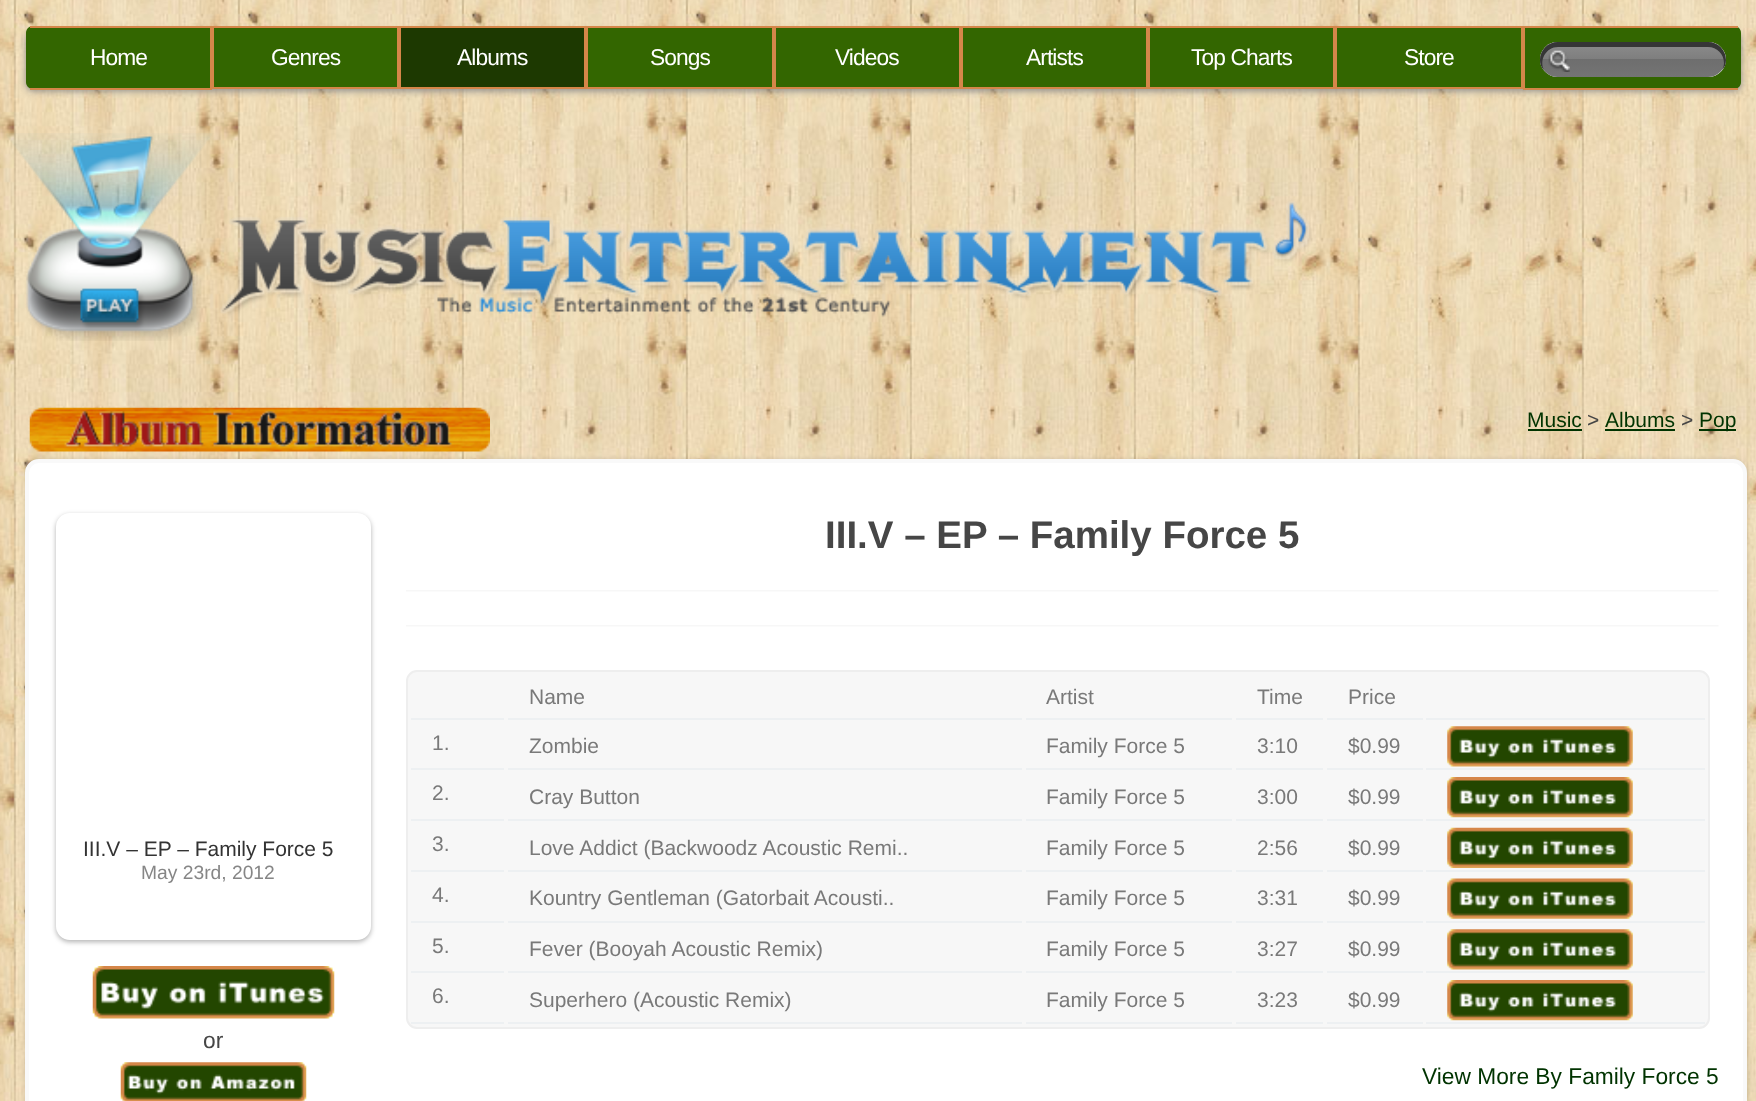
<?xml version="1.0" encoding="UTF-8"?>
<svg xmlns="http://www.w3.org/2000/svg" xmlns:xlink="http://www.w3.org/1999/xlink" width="1756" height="1101">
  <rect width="100%" height="100%" fill="#ffffff" />
  <image x="0" y="0" width="1756" height="1101" xlink:href="image1.png" />
  <rect x="26" y="32" width="1715" height="59" rx="7" fill="#8b8b8b" filter="blur(3.5px)" />
  <path d="M 33 26 h 179 v 63 h -179 c -4 0 -7 -3 -7 -7 v -49 c 0 -4 3 -7 7 -7 z" fill="#336600" />
  <rect x="30" y="26" width="182" height="2" fill="#d58649" />
  <rect x="210" y="26" width="2" height="63" fill="#d58649" />
  <rect x="30" y="88" width="182" height="2" fill="#d58649" />
  <rect x="213" y="27" width="185" height="61" fill="#336600" stroke="#d58649" stroke-width="2" />
  <rect x="400" y="27" width="185" height="61" fill="#1d3901" stroke="#d58649" stroke-width="2" />
  <rect x="587" y="27" width="186" height="61" fill="#336600" stroke="#d58649" stroke-width="2" />
  <rect x="775" y="27" width="185" height="61" fill="#336600" stroke="#d58649" stroke-width="2" />
  <rect x="962" y="27" width="185" height="61" fill="#336600" stroke="#d58649" stroke-width="2" />
  <rect x="1149" y="27" width="185" height="61" fill="#336600" stroke="#d58649" stroke-width="2" />
  <rect x="1336" y="27" width="186" height="61" fill="#336600" stroke="#d58649" stroke-width="2" />
  <path d="M 1523 26 h 211 c 4 0 7 3 7 7 v 49 c 0 4 -3 7 -7 7 h -211 z" fill="#336600" />
  <rect x="1523" y="26" width="215" height="2" fill="#d58649" />
  <rect x="1523" y="88" width="215" height="2" fill="#d58649" />
  <rect x="1523" y="26" width="2" height="63" fill="#d58649" />
  <rect x="1540" y="42" width="186" height="35" rx="17.5" fill="#ffffff" />
  <image x="1540" y="42" width="186" height="35" xlink:href="image2.png" />
  <path d="M 1558 47 h 150 c 9 0 16 7 16 16 c 0 3 -1 5 -2 7 c 3 -3 4 -6 4 -10 c 0 -10 -8 -18 -18 -18 h -150 c -10 0 -18 8 -18 18 c 0 4 1 7 4 10 c -5 -10 2 -23 14 -23 z" fill="#363636" />
  <image x="6" y="133" width="1306" height="208" xlink:href="image3.png" />
  <image x="29" y="407" width="461" height="45" xlink:href="image4.png" />
  <rect x="1528" y="429" width="54" height="2" fill="#003300" />
  <rect x="1605" y="429" width="70" height="2" fill="#003300" />
  <rect x="1699" y="429" width="37" height="2" fill="#003300" />
  <rect x="25" y="459" width="1722" height="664" rx="14" fill="#293232" fill-opacity="0.15" filter="blur(2.5px)" />
  <rect x="27" y="461" width="1718" height="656" rx="12" fill="#ffffff" stroke="#f9f9f9" stroke-width="4" />
  <rect x="56" y="515" width="315" height="427" rx="14" fill="#000000" fill-opacity="0.3" filter="blur(2.5px)" />
  <rect x="56" y="513" width="315" height="427" rx="14" fill="#ffffff" />
  <image x="92" y="966" width="243" height="53" xlink:href="image5.png" />
  <image x="120" y="1062" width="187" height="39" xlink:href="image6.png" />
  <image x="406" y="590" width="1313" height="2" xlink:href="image7.png" />
  <image x="406" y="625" width="1313" height="2" xlink:href="image7.png" />
  <rect x="407" y="671" width="1302" height="357" rx="10" fill="#f7f7f7" stroke="#eeeeee" stroke-width="2" />
  <rect x="508" y="718" width="514" height="2" fill="#edf0f2" />
  <rect x="1026" y="718" width="206" height="2" fill="#edf0f2" />
  <rect x="1236" y="718" width="87" height="2" fill="#edf0f2" />
  <rect x="1327" y="718" width="96" height="2" fill="#edf0f2" />
  <rect x="411" y="718" width="93" height="2" fill="#edf0f2" />
  <rect x="1426" y="718" width="279" height="2" fill="#edf0f2" />
  <rect x="411" y="768" width="93" height="2" fill="#edf0f2" />
  <rect x="508" y="768" width="514" height="2" fill="#edf0f2" />
  <rect x="1026" y="768" width="206" height="2" fill="#edf0f2" />
  <rect x="1236" y="768" width="87" height="2" fill="#edf0f2" />
  <rect x="1327" y="768" width="96" height="2" fill="#edf0f2" />
  <rect x="1426" y="768" width="279" height="2" fill="#edf0f2" />
  <image x="1447" y="726" width="186" height="41" xlink:href="image8.png" />
  <rect x="411" y="819" width="93" height="2" fill="#edf0f2" />
  <rect x="508" y="819" width="514" height="2" fill="#edf0f2" />
  <rect x="1026" y="819" width="206" height="2" fill="#edf0f2" />
  <rect x="1236" y="819" width="87" height="2" fill="#edf0f2" />
  <rect x="1327" y="819" width="96" height="2" fill="#edf0f2" />
  <rect x="1426" y="819" width="279" height="2" fill="#edf0f2" />
  <image x="1447" y="777" width="186" height="41" xlink:href="image9.png" />
  <rect x="411" y="870" width="93" height="2" fill="#edf0f2" />
  <rect x="508" y="870" width="514" height="2" fill="#edf0f2" />
  <rect x="1026" y="870" width="206" height="2" fill="#edf0f2" />
  <rect x="1236" y="870" width="87" height="2" fill="#edf0f2" />
  <rect x="1327" y="870" width="96" height="2" fill="#edf0f2" />
  <rect x="1426" y="870" width="279" height="2" fill="#edf0f2" />
  <image x="1447" y="827" width="186" height="41" xlink:href="image10.png" />
  <rect x="411" y="921" width="93" height="2" fill="#edf0f2" />
  <rect x="508" y="921" width="514" height="2" fill="#edf0f2" />
  <rect x="1026" y="921" width="206" height="2" fill="#edf0f2" />
  <rect x="1236" y="921" width="87" height="2" fill="#edf0f2" />
  <rect x="1327" y="921" width="96" height="2" fill="#edf0f2" />
  <rect x="1426" y="921" width="279" height="2" fill="#edf0f2" />
  <image x="1447" y="878" width="186" height="41" xlink:href="image11.png" />
  <rect x="411" y="971" width="93" height="2" fill="#edf0f2" />
  <rect x="508" y="971" width="514" height="2" fill="#edf0f2" />
  <rect x="1026" y="971" width="206" height="2" fill="#edf0f2" />
  <rect x="1236" y="971" width="87" height="2" fill="#edf0f2" />
  <rect x="1327" y="971" width="96" height="2" fill="#edf0f2" />
  <rect x="1426" y="971" width="279" height="2" fill="#edf0f2" />
  <image x="1447" y="929" width="186" height="41" xlink:href="image8.png" />
  <rect x="411" y="1022" width="93" height="2" fill="#edf0f2" />
  <rect x="508" y="1022" width="514" height="2" fill="#edf0f2" />
  <rect x="1026" y="1022" width="206" height="2" fill="#edf0f2" />
  <rect x="1236" y="1022" width="87" height="2" fill="#edf0f2" />
  <rect x="1327" y="1022" width="96" height="2" fill="#edf0f2" />
  <rect x="1426" y="1022" width="279" height="2" fill="#edf0f2" />
  <image x="1447" y="980" width="186" height="41" xlink:href="image9.png" />
  <text x="90" y="65" style="font-family: Liberation Sans; font-size: 22.75px; letter-spacing: -0.9px; fill: #ffffff">Home</text>
  <text x="271" y="65" style="font-family: Liberation Sans; font-size: 22.75px; letter-spacing: -0.9px; fill: #ffffff">Genres</text>
  <text x="457" y="65" style="font-family: Liberation Sans; font-size: 22.75px; letter-spacing: -0.9px; fill: #ffffff">Albums</text>
  <text x="650" y="65" style="font-family: Liberation Sans; font-size: 22.75px; letter-spacing: -0.9px; fill: #ffffff">Songs</text>
  <text x="835" y="65" style="font-family: Liberation Sans; font-size: 22.75px; letter-spacing: -0.9px; fill: #ffffff">Videos</text>
  <text x="1026" y="65" style="font-family: Liberation Sans; font-size: 22.75px; letter-spacing: -0.9px; fill: #ffffff">Artists</text>
  <text x="1191" y="65" style="font-family: Liberation Sans; font-size: 22.75px; letter-spacing: -0.9px; fill: #ffffff">Top Charts</text>
  <text x="1404" y="65" style="font-family: Liberation Sans; font-size: 22.75px; letter-spacing: -0.9px; fill: #ffffff">Store</text>
  <text x="1527" y="427" style="font-family: Liberation Sans; font-size: 21px; fill: #003300">Music</text>
  <text x="1587" y="427" style="font-family: Liberation Sans; font-size: 21px; fill: #464646">&gt;</text>
  <text x="1605" y="427" style="font-family: Liberation Sans; font-size: 21px; fill: #003300">Albums</text>
  <text x="1681" y="427" style="font-family: Liberation Sans; font-size: 21px; fill: #464646">&gt;</text>
  <text x="1699" y="427" style="font-family: Liberation Sans; font-size: 21px; fill: #003300">Pop</text>
  <text x="83" y="856" style="font-family: Liberation Sans; font-size: 21px; fill: #333333">III.V – EP – Family Force 5</text>
  <text x="141" y="879" style="font-family: Liberation Sans; font-size: 19.25px; fill: #868686">May 23rd, 2012</text>
  <text x="203" y="1048" style="font-family: Liberation Sans; font-size: 22.75px; fill: #464646">or</text>
  <text x="825" y="548" style="font-family: Liberation Sans; font-size: 38.5px; font-weight: bold; fill: #464646">III.V – EP – Family Force 5</text>
  <text x="529" y="704" style="font-family: Liberation Sans; font-size: 21px; fill: #797979">Name</text>
  <text x="1046" y="704" style="font-family: Liberation Sans; font-size: 21px; fill: #797979">Artist</text>
  <text x="1257" y="704" style="font-family: Liberation Sans; font-size: 21px; fill: #797979">Time</text>
  <text x="1348" y="704" style="font-family: Liberation Sans; font-size: 21px; fill: #797979">Price</text>
  <text x="432" y="750" style="font-family: Liberation Sans; font-size: 21px; fill: #797979">1.</text>
  <text x="529" y="753" style="font-family: Liberation Sans; font-size: 21px; fill: #797979">Zombie</text>
  <text x="1046" y="753" style="font-family: Liberation Sans; font-size: 21px; fill: #797979">Family Force 5</text>
  <text x="1257" y="753" style="font-family: Liberation Sans; font-size: 21px; fill: #797979">3:10</text>
  <text x="1348" y="753" style="font-family: Liberation Sans; font-size: 21px; fill: #797979">$0.99</text>
  <text x="432" y="800" style="font-family: Liberation Sans; font-size: 21px; fill: #797979">2.</text>
  <text x="529" y="804" style="font-family: Liberation Sans; font-size: 21px; fill: #797979">Cray Button</text>
  <text x="1046" y="804" style="font-family: Liberation Sans; font-size: 21px; fill: #797979">Family Force 5</text>
  <text x="1257" y="804" style="font-family: Liberation Sans; font-size: 21px; fill: #797979">3:00</text>
  <text x="1348" y="804" style="font-family: Liberation Sans; font-size: 21px; fill: #797979">$0.99</text>
  <text x="432" y="851" style="font-family: Liberation Sans; font-size: 21px; fill: #797979">3.</text>
  <text x="529" y="855" style="font-family: Liberation Sans; font-size: 21px; fill: #797979">Love Addict (Backwoodz Acoustic Remi..</text>
  <text x="1046" y="855" style="font-family: Liberation Sans; font-size: 21px; fill: #797979">Family Force 5</text>
  <text x="1257" y="855" style="font-family: Liberation Sans; font-size: 21px; fill: #797979">2:56</text>
  <text x="1348" y="855" style="font-family: Liberation Sans; font-size: 21px; fill: #797979">$0.99</text>
  <text x="432" y="902" style="font-family: Liberation Sans; font-size: 21px; fill: #797979">4.</text>
  <text x="529" y="905" style="font-family: Liberation Sans; font-size: 21px; fill: #797979">Kountry Gentleman (Gatorbait Acousti..</text>
  <text x="1046" y="905" style="font-family: Liberation Sans; font-size: 21px; fill: #797979">Family Force 5</text>
  <text x="1257" y="905" style="font-family: Liberation Sans; font-size: 21px; fill: #797979">3:31</text>
  <text x="1348" y="905" style="font-family: Liberation Sans; font-size: 21px; fill: #797979">$0.99</text>
  <text x="432" y="953" style="font-family: Liberation Sans; font-size: 21px; fill: #797979">5.</text>
  <text x="529" y="956" style="font-family: Liberation Sans; font-size: 21px; fill: #797979">Fever (Booyah Acoustic Remix)</text>
  <text x="1046" y="956" style="font-family: Liberation Sans; font-size: 21px; fill: #797979">Family Force 5</text>
  <text x="1257" y="956" style="font-family: Liberation Sans; font-size: 21px; fill: #797979">3:27</text>
  <text x="1348" y="956" style="font-family: Liberation Sans; font-size: 21px; fill: #797979">$0.99</text>
  <text x="432" y="1003" style="font-family: Liberation Sans; font-size: 21px; fill: #797979">6.</text>
  <text x="529" y="1007" style="font-family: Liberation Sans; font-size: 21px; fill: #797979">Superhero (Acoustic Remix)</text>
  <text x="1046" y="1007" style="font-family: Liberation Sans; font-size: 21px; fill: #797979">Family Force 5</text>
  <text x="1257" y="1007" style="font-family: Liberation Sans; font-size: 21px; fill: #797979">3:23</text>
  <text x="1348" y="1007" style="font-family: Liberation Sans; font-size: 21px; fill: #797979">$0.99</text>
  <text x="1422" y="1084" style="font-family: Liberation Sans; font-size: 22.75px; fill: #003300">View More By Family Force 5</text>
</svg>
